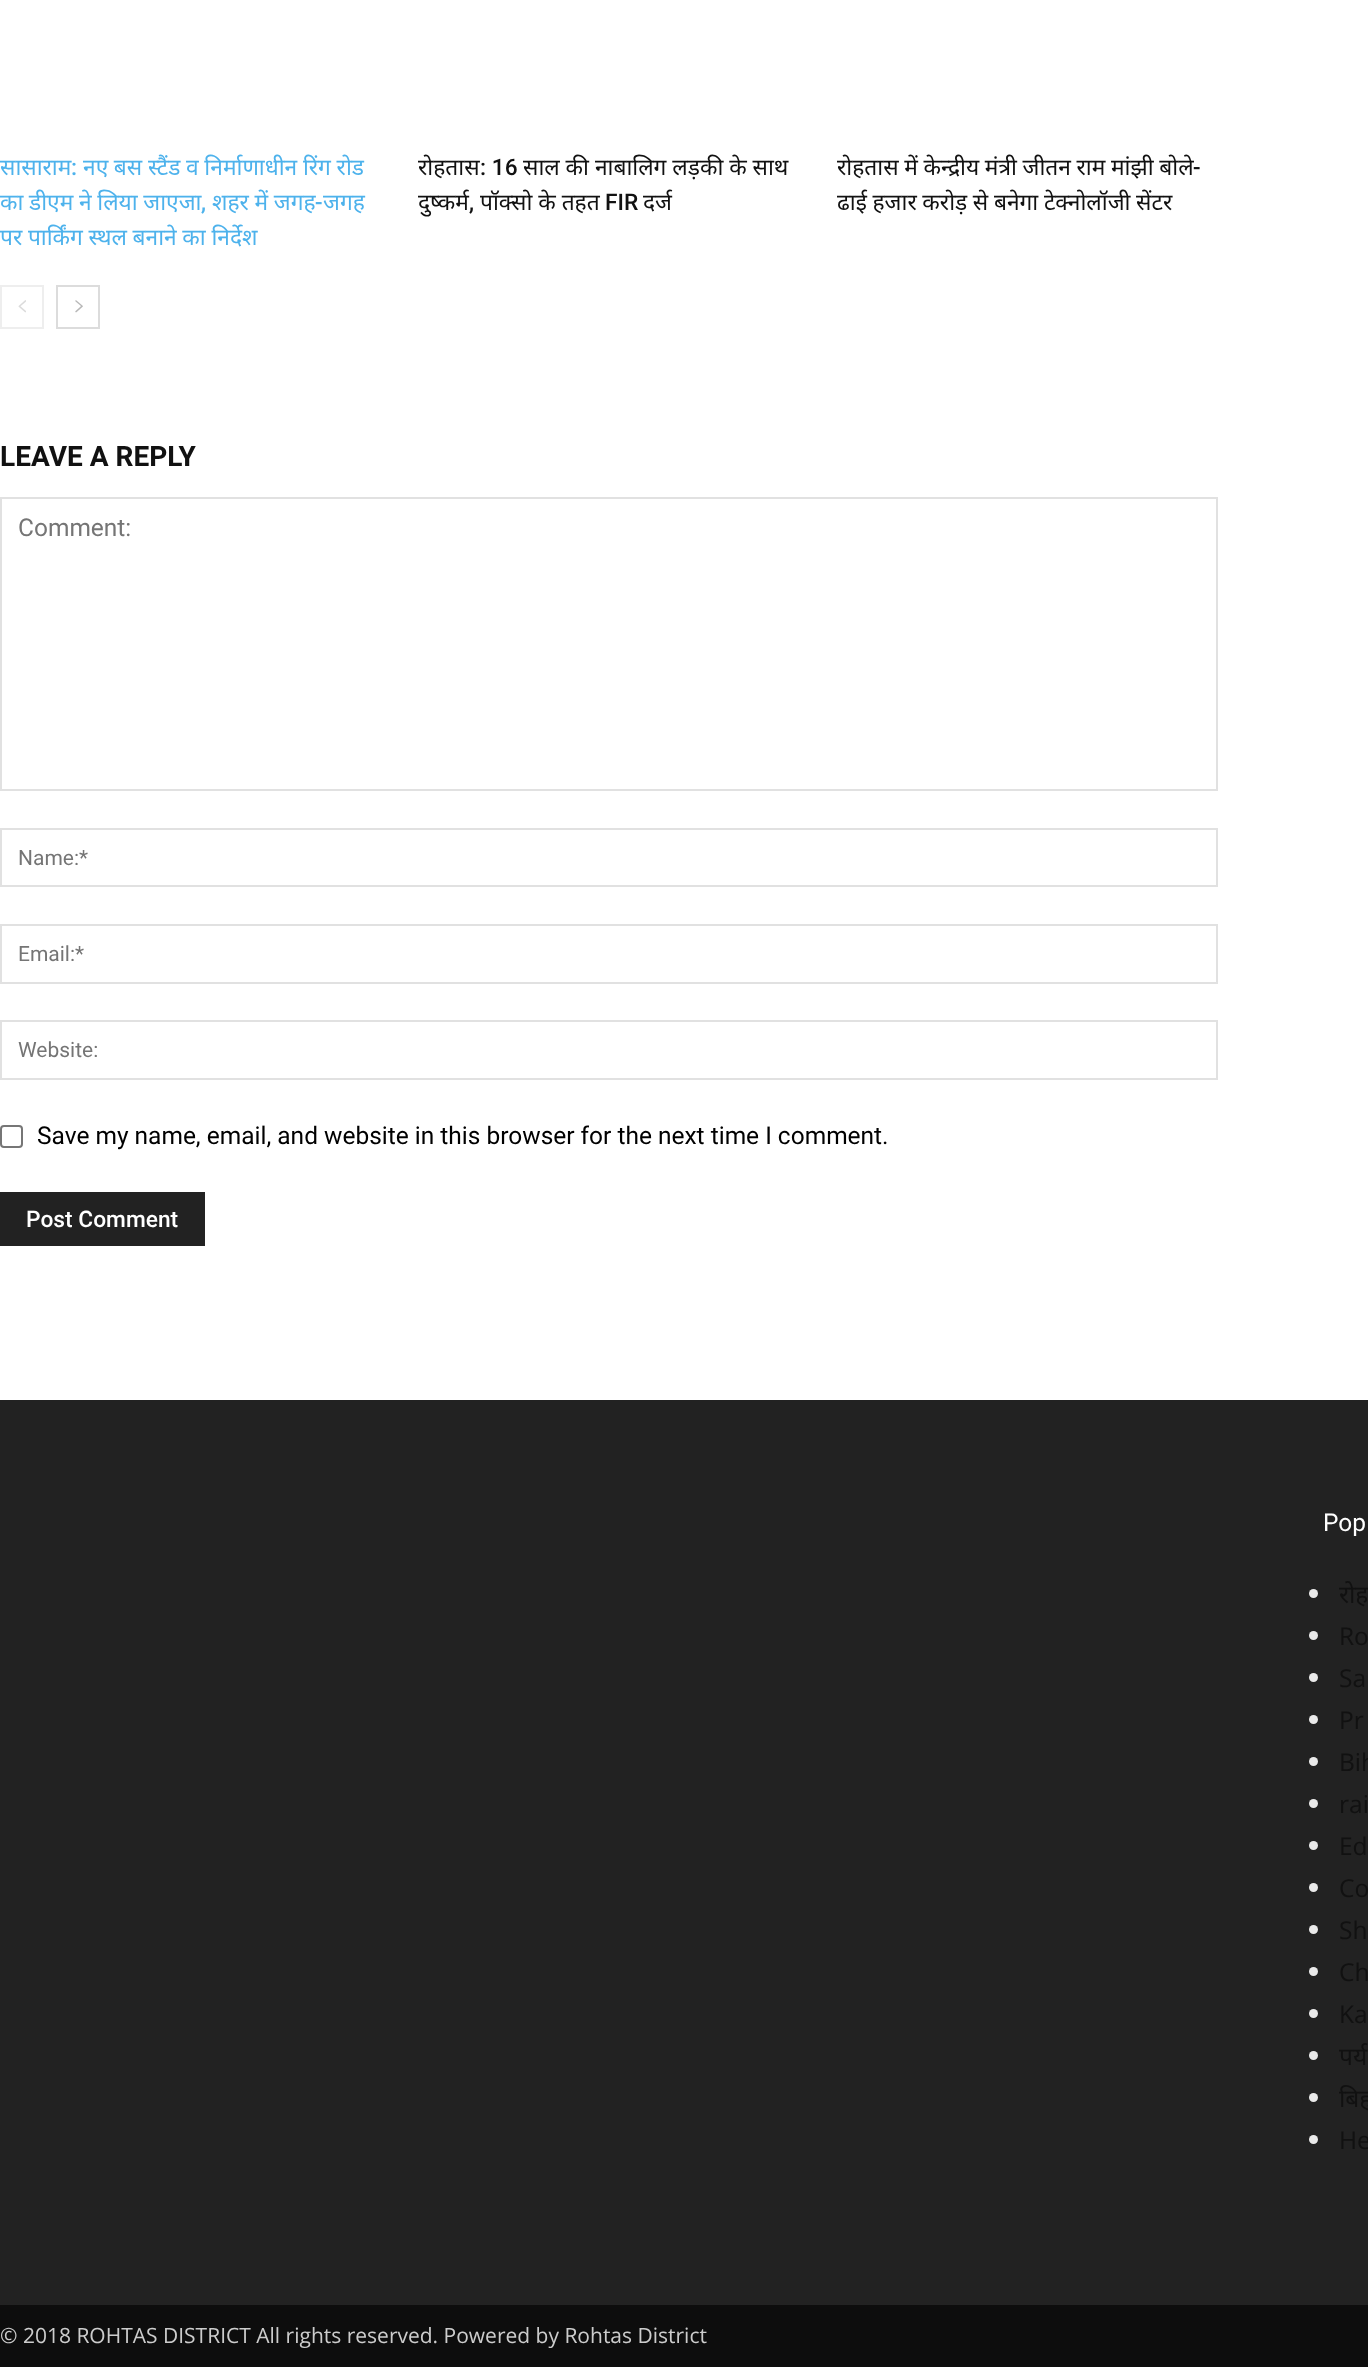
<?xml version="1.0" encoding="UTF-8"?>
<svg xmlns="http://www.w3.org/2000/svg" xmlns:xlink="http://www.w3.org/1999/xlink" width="1368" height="2367">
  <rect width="100%" height="100%" fill="#ffffff" />
  <rect x="1" y="286" width="42" height="42" fill="none" stroke="#eeeeee" stroke-width="2" />
  <image x="18" y="300" width="8" height="13" xlink:href="image1.png" />
  <rect x="57" y="286" width="42" height="42" fill="none" stroke="#dcdcdc" stroke-width="2" />
  <image x="75" y="300" width="8" height="13" xlink:href="image2.png" />
  <rect x="1" y="498" width="1216" height="292" fill="none" stroke="#e1e1e1" stroke-width="2" />
  <rect x="1" y="829" width="1216" height="57" fill="none" stroke="#e1e1e1" stroke-width="2" />
  <rect x="1" y="925" width="1216" height="58" fill="none" stroke="#e1e1e1" stroke-width="2" />
  <rect x="1" y="1021" width="1216" height="58" fill="none" stroke="#e1e1e1" stroke-width="2" />
  <rect x="1" y="1126" width="21" height="21" rx="3" fill="none" stroke="#767676" stroke-width="2" />
  <rect y="1192" width="205" height="54" fill="#222222" />
  <rect y="1400" width="1368" height="905" fill="#222222" />
  <circle cx="1313.5" cy="1593.5" r="4.5" fill="#eaeaea" />
  <circle cx="1313.5" cy="1635.5" r="4.5" fill="#eaeaea" />
  <circle cx="1313.5" cy="1677.5" r="4.5" fill="#eaeaea" />
  <circle cx="1313.5" cy="1719.5" r="4.5" fill="#eaeaea" />
  <circle cx="1313.5" cy="1761.5" r="4.5" fill="#eaeaea" />
  <circle cx="1313.5" cy="1803.5" r="4.5" fill="#eaeaea" />
  <circle cx="1313.5" cy="1845.5" r="4.5" fill="#eaeaea" />
  <circle cx="1313.5" cy="1887.5" r="4.5" fill="#eaeaea" />
  <circle cx="1313.5" cy="1929.5" r="4.5" fill="#eaeaea" />
  <circle cx="1313.5" cy="1971.5" r="4.5" fill="#eaeaea" />
  <circle cx="1313.5" cy="2013.5" r="4.5" fill="#eaeaea" />
  <circle cx="1313.5" cy="2055.5" r="4.5" fill="#eaeaea" />
  <circle cx="1313.5" cy="2097.5" r="4.5" fill="#eaeaea" />
  <circle cx="1313.5" cy="2139.5" r="4.5" fill="#eaeaea" />
  <rect y="2305" width="1368" height="62" fill="#0d0d0d" />
  <text x="0" y="175" style="font-family: Noto Sans; font-size: 22.75px; fill: #4db2ec">सासाराम</text>
  <text x="71" y="175" style="font-family: Roboto; font-size: 22.75px; font-weight: 500; fill: #4db2ec">:</text>
  <text x="83" y="175" word-spacing="-0.25" style="font-family: Noto Sans; font-size: 22.75px; fill: #4db2ec">नए बस स्टैंड व निर्माणाधीन रिंग रोड</text>
  <text x="0" y="210" word-spacing="-0.25" style="font-family: Noto Sans; font-size: 22.75px; fill: #4db2ec">का डीएम ने लिया जाएजा</text>
  <text x="212" y="210" word-spacing="-0.25" style="font-family: Noto Sans; font-size: 22.75px; fill: #4db2ec">शहर में जगह</text>
  <text x="315" y="210" style="font-family: Roboto; font-size: 22.75px; font-weight: 500; fill: #4db2ec">-</text>
  <text x="323" y="210" style="font-family: Noto Sans; font-size: 22.75px; fill: #4db2ec">जगह</text>
  <text x="201" y="210" style="font-family: Roboto; font-size: 22.75px; font-weight: 500; fill: #4db2ec">,</text>
  <text x="0" y="245" word-spacing="-0.25" style="font-family: Noto Sans; font-size: 22.75px; fill: #4db2ec">पर पार्किंग स्थल बनाने का निर्देश</text>
  <text x="418" y="175" style="font-family: Noto Sans; font-size: 22.75px; fill: #111111">रोहतास</text>
  <text x="480" y="175" style="font-family: Roboto; font-size: 22.75px; font-weight: 500; fill: #111111">: 16</text>
  <text x="523" y="175" style="font-family: Noto Sans; font-size: 22.75px; fill: #111111">साल की नाबालिग लड़की के साथ</text>
  <text x="418" y="210" style="font-family: Noto Sans; font-size: 22.75px; fill: #111111">दुष्कर्म</text>
  <text x="469" y="210" style="font-family: Roboto; font-size: 22.75px; font-weight: 500; fill: #111111">,</text>
  <text x="480" y="210" style="font-family: Noto Sans; font-size: 22.75px; fill: #111111">पॉक्सो के तहत</text>
  <text x="605" y="210" style="font-family: Roboto; font-size: 22.75px; font-weight: 500; fill: #111111">FIR</text>
  <text x="643" y="210" style="font-family: Noto Sans; font-size: 22.75px; fill: #111111">दर्ज</text>
  <text x="837" y="175" word-spacing="-0.25" style="font-family: Noto Sans; font-size: 22.75px; fill: #111111">रोहतास में केन्द्रीय मंत्री जीतन राम मांझी बोले</text>
  <text x="1193" y="175" style="font-family: Roboto; font-size: 22.75px; font-weight: 500; fill: #111111">-</text>
  <text x="837" y="210" word-spacing="-0.25" style="font-family: Noto Sans; font-size: 22.75px; fill: #111111">ढाई हजार करोड़ से बनेगा टेक्नोलॉजी सेंटर</text>
  <text x="0" y="466" style="font-family: Roboto; font-size: 28px; font-weight: bold; fill: #111111">LEAVE A REPLY</text>
  <text x="18" y="536" style="font-family: Roboto; font-size: 24.5px; fill: #757575">Comment:</text>
  <text x="18" y="865" style="font-family: Roboto; font-size: 21px; fill: #757575">Name:*</text>
  <text x="18" y="961" style="font-family: Roboto; font-size: 21px; fill: #757575">Email:*</text>
  <text x="18" y="1057" style="font-family: Roboto; font-size: 21px; fill: #757575">Website:</text>
  <text x="37" y="1144" style="font-family: Roboto; font-size: 24.5px; fill: #000000">Save my name, email, and website in this browser for the next time I comment.</text>
  <text x="26" y="1227" style="font-family: Roboto; font-size: 22.75px; font-weight: 500; fill: #ffffff">Post Comment</text>
  <text x="1323" y="1531" style="font-family: Roboto; font-size: 24.5px; fill: #ffffff">Pop</text>
  <text x="1339" y="1603" style="font-family: Noto Sans; font-size: 24.5px; fill: #111111">रोह</text>
  <text x="1339" y="1645" style="font-family: Open Sans; font-size: 24.5px; fill: #111111">Ro</text>
  <text x="1339" y="1687" style="font-family: Open Sans; font-size: 24.5px; fill: #111111">Sa</text>
  <text x="1339" y="1729" style="font-family: Open Sans; font-size: 24.5px; fill: #111111">Pr</text>
  <text x="1339" y="1771" style="font-family: Open Sans; font-size: 24.5px; fill: #111111">Bih</text>
  <text x="1339" y="1813" style="font-family: Open Sans; font-size: 24.5px; fill: #111111">rai</text>
  <text x="1339" y="1855" style="font-family: Open Sans; font-size: 24.5px; fill: #111111">Ed</text>
  <text x="1339" y="1897" style="font-family: Open Sans; font-size: 24.5px; fill: #111111">Co</text>
  <text x="1339" y="1939" style="font-family: Open Sans; font-size: 24.5px; fill: #111111">Sh</text>
  <text x="1339" y="1981" style="font-family: Open Sans; font-size: 24.5px; fill: #111111">Ch</text>
  <text x="1339" y="2023" style="font-family: Open Sans; font-size: 24.5px; fill: #111111">Ka</text>
  <text x="1339" y="2065" style="font-family: Noto Sans; font-size: 24.5px; fill: #111111">पर्य</text>
  <text x="1339" y="2107" style="font-family: Noto Sans; font-size: 24.5px; fill: #111111">बिह</text>
  <text x="1339" y="2149" style="font-family: Open Sans; font-size: 24.5px; fill: #111111">He</text>
  <text x="0" y="2343" style="font-family: Open Sans; font-size: 21px; fill: #cccccc">© 2018 ROHTAS DISTRICT All rights reserved. Powered by Rohtas District</text>
</svg>
